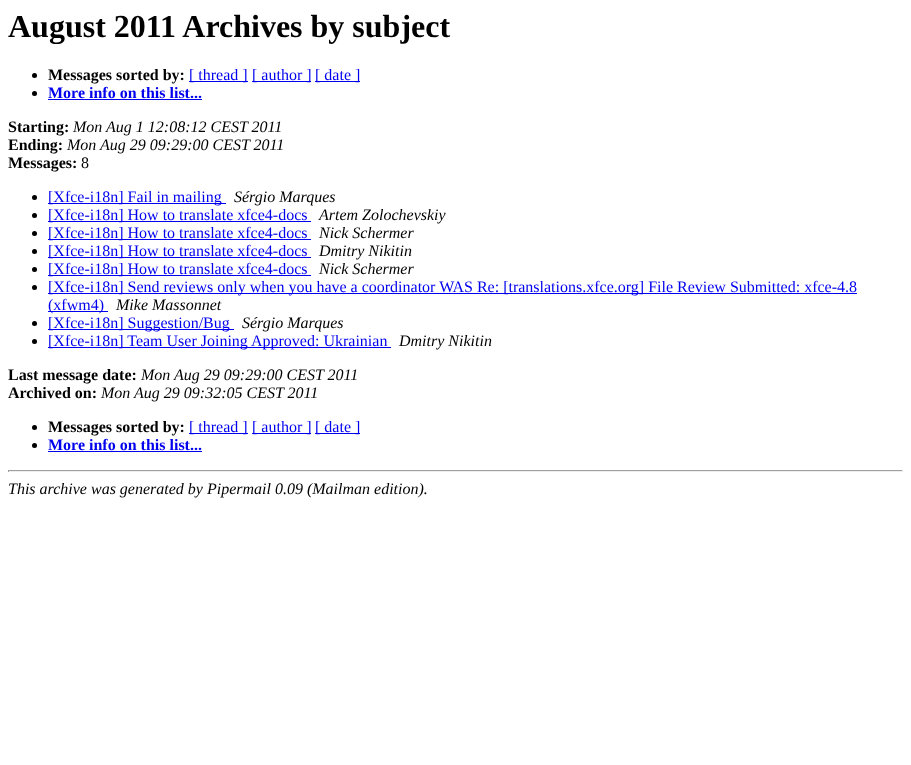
<?xml version="1.0" encoding="UTF-8"?>
<svg xmlns="http://www.w3.org/2000/svg" xmlns:xlink="http://www.w3.org/1999/xlink" width="911" height="765">
  <rect width="100%" height="100%" fill="#ffffff" />
  <circle cx="34.5" cy="75.5" r="2.5" fill="#000000" />
  <rect x="189" y="81" width="59" height="1" fill="#0000ee" />
  <rect x="252" y="81" width="59" height="1" fill="#0000ee" />
  <rect x="315" y="81" width="45" height="1" fill="#0000ee" />
  <circle cx="34.5" cy="93.5" r="2.5" fill="#000000" />
  <rect x="48" y="99" width="154" height="1" fill="#0000ee" />
  <circle cx="34.5" cy="197.5" r="2.5" fill="#000000" />
  <rect x="48" y="203" width="178" height="1" fill="#0000ee" />
  <circle cx="34.5" cy="215.5" r="2.5" fill="#000000" />
  <rect x="48" y="221" width="263" height="1" fill="#0000ee" />
  <circle cx="34.5" cy="233.5" r="2.5" fill="#000000" />
  <rect x="48" y="239" width="263" height="1" fill="#0000ee" />
  <circle cx="34.5" cy="251.5" r="2.5" fill="#000000" />
  <rect x="48" y="257" width="263" height="1" fill="#0000ee" />
  <circle cx="34.5" cy="269.5" r="2.5" fill="#000000" />
  <rect x="48" y="275" width="263" height="1" fill="#0000ee" />
  <circle cx="34.5" cy="287.5" r="2.5" fill="#000000" />
  <rect x="48" y="293" width="809" height="1" fill="#0000ee" />
  <rect x="48" y="311" width="60" height="1" fill="#0000ee" />
  <circle cx="34.5" cy="323.5" r="2.5" fill="#000000" />
  <rect x="48" y="329" width="186" height="1" fill="#0000ee" />
  <circle cx="34.5" cy="341.5" r="2.5" fill="#000000" />
  <rect x="48" y="347" width="343" height="1" fill="#0000ee" />
  <circle cx="34.5" cy="427.5" r="2.5" fill="#000000" />
  <rect x="189" y="433" width="59" height="1" fill="#0000ee" />
  <rect x="252" y="433" width="59" height="1" fill="#0000ee" />
  <rect x="315" y="433" width="45" height="1" fill="#0000ee" />
  <circle cx="34.5" cy="445.5" r="2.5" fill="#000000" />
  <rect x="48" y="451" width="154" height="1" fill="#0000ee" />
  <rect x="8" y="470" width="895" height="1" fill="#9f9f9f" />
  <rect x="902" y="470" width="1" height="2" fill="#eeeeee" />
  <rect x="8" y="471" width="895" height="1" fill="#eeeeee" />
  <rect x="8" y="470" width="1" height="2" fill="#9f9f9f" />
  <text x="8" y="37" style="font-family: Liberation Serif; font-size: 32px; font-weight: bold; fill: #000000">August 2011 Archives by subject</text>
  <text x="48" y="80" style="font-family: Liberation Serif; font-size: 16px; font-weight: bold; fill: #000000">Messages sorted by:</text>
  <text x="189" y="80" style="font-family: Liberation Serif; font-size: 16px; fill: #0000ee">[ thread ]</text>
  <text x="252" y="80" style="font-family: Liberation Serif; font-size: 16px; fill: #0000ee">[ author ]</text>
  <text x="315" y="80" style="font-family: Liberation Serif; font-size: 16px; fill: #0000ee">[ date ]</text>
  <text x="48" y="98" style="font-family: Liberation Serif; font-size: 16px; font-weight: bold; fill: #0000ee">More info on this list...</text>
  <text x="8" y="132" style="font-family: Liberation Serif; font-size: 16px; font-weight: bold; fill: #000000">Starting:</text>
  <text x="73" y="132" style="font-family: Liberation Serif; font-size: 16px; font-style: italic; fill: #000000">Mon Aug 1 12:08:12 CEST 2011</text>
  <text x="8" y="150" style="font-family: Liberation Serif; font-size: 16px; font-weight: bold; fill: #000000">Ending:</text>
  <text x="67" y="150" style="font-family: Liberation Serif; font-size: 16px; font-style: italic; fill: #000000">Mon Aug 29 09:29:00 CEST 2011</text>
  <text x="8" y="168" style="font-family: Liberation Serif; font-size: 16px; font-weight: bold; fill: #000000">Messages:</text>
  <text x="81" y="168" style="font-family: Liberation Serif; font-size: 16px; fill: #000000">8</text>
  <text x="48" y="202" style="font-family: Liberation Serif; font-size: 16px; fill: #0000ee">[Xfce-i18n] Fail in mailing</text>
  <text x="234" y="202" style="font-family: Liberation Serif; font-size: 16px; font-style: italic; fill: #000000">Sérgio Marques</text>
  <text x="48" y="220" style="font-family: Liberation Serif; font-size: 16px; fill: #0000ee">[Xfce-i18n] How to translate xfce4-docs</text>
  <text x="319" y="220" style="font-family: Liberation Serif; font-size: 16px; font-style: italic; fill: #000000">Artem Zolochevskiy</text>
  <text x="48" y="238" style="font-family: Liberation Serif; font-size: 16px; fill: #0000ee">[Xfce-i18n] How to translate xfce4-docs</text>
  <text x="319" y="238" style="font-family: Liberation Serif; font-size: 16px; font-style: italic; fill: #000000">Nick Schermer</text>
  <text x="48" y="256" style="font-family: Liberation Serif; font-size: 16px; fill: #0000ee">[Xfce-i18n] How to translate xfce4-docs</text>
  <text x="319" y="256" style="font-family: Liberation Serif; font-size: 16px; font-style: italic; fill: #000000">Dmitry Nikitin</text>
  <text x="48" y="274" style="font-family: Liberation Serif; font-size: 16px; fill: #0000ee">[Xfce-i18n] How to translate xfce4-docs</text>
  <text x="319" y="274" style="font-family: Liberation Serif; font-size: 16px; font-style: italic; fill: #000000">Nick Schermer</text>
  <text x="48" y="292" style="font-family: Liberation Serif; font-size: 16px; fill: #0000ee">[Xfce-i18n] Send reviews only when you have a coordinator WAS Re: [translations.xfce.org] File Review Submitted: xfce-4.8</text>
  <text x="48" y="310" style="font-family: Liberation Serif; font-size: 16px; fill: #0000ee">(xfwm4)</text>
  <text x="116" y="310" style="font-family: Liberation Serif; font-size: 16px; font-style: italic; fill: #000000">Mike Massonnet</text>
  <text x="48" y="328" style="font-family: Liberation Serif; font-size: 16px; fill: #0000ee">[Xfce-i18n] Suggestion/Bug</text>
  <text x="242" y="328" style="font-family: Liberation Serif; font-size: 16px; font-style: italic; fill: #000000">Sérgio Marques</text>
  <text x="48" y="346" style="font-family: Liberation Serif; font-size: 16px; fill: #0000ee">[Xfce-i18n] Team User Joining Approved: Ukrainian</text>
  <text x="399" y="346" style="font-family: Liberation Serif; font-size: 16px; font-style: italic; fill: #000000">Dmitry Nikitin</text>
  <text x="8" y="380" style="font-family: Liberation Serif; font-size: 16px; font-weight: bold; fill: #000000">Last message date:</text>
  <text x="141" y="380" style="font-family: Liberation Serif; font-size: 16px; font-style: italic; fill: #000000">Mon Aug 29 09:29:00 CEST 2011</text>
  <text x="8" y="398" style="font-family: Liberation Serif; font-size: 16px; font-weight: bold; fill: #000000">Archived on:</text>
  <text x="101" y="398" style="font-family: Liberation Serif; font-size: 16px; font-style: italic; fill: #000000">Mon Aug 29 09:32:05 CEST 2011</text>
  <text x="48" y="432" style="font-family: Liberation Serif; font-size: 16px; font-weight: bold; fill: #000000">Messages sorted by:</text>
  <text x="189" y="432" style="font-family: Liberation Serif; font-size: 16px; fill: #0000ee">[ thread ]</text>
  <text x="252" y="432" style="font-family: Liberation Serif; font-size: 16px; fill: #0000ee">[ author ]</text>
  <text x="315" y="432" style="font-family: Liberation Serif; font-size: 16px; fill: #0000ee">[ date ]</text>
  <text x="48" y="450" style="font-family: Liberation Serif; font-size: 16px; font-weight: bold; fill: #0000ee">More info on this list...</text>
  <text x="8" y="494" style="font-family: Liberation Serif; font-size: 16px; font-style: italic; fill: #000000">This archive was generated by Pipermail 0.09 (Mailman edition).</text>
</svg>
